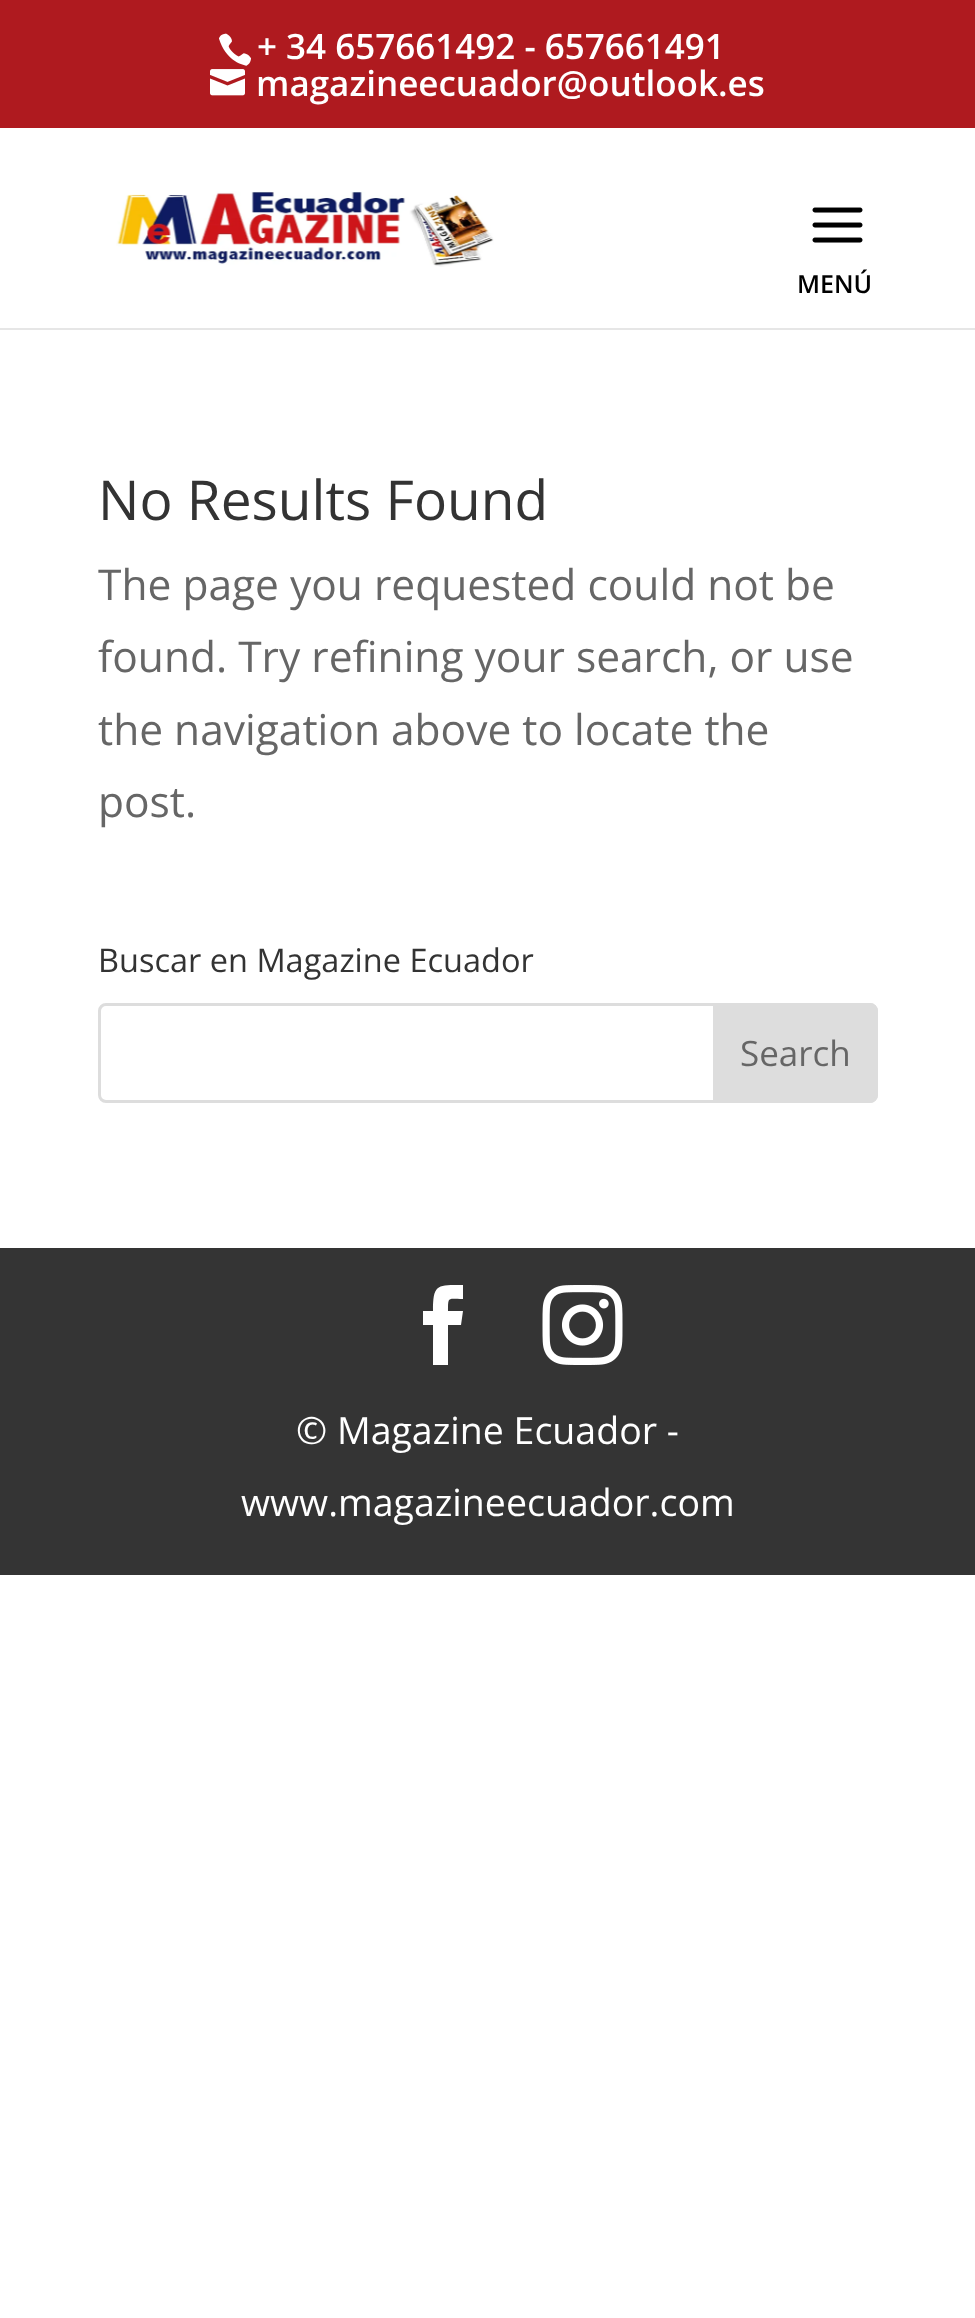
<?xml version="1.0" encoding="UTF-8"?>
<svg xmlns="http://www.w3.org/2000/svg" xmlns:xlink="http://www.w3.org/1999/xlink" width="975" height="2318">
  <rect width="100%" height="100%" fill="#ffffff" />
  <rect width="975" height="128" fill="#af1a1f" />
  <image x="219" y="33" width="32" height="33" xlink:href="image1.png" />
  <image x="210" y="69" width="35" height="27" xlink:href="image2.png" />
  <rect y="328" width="975" height="2" fill="#e6e6e6" />
  <image x="116" y="191" width="378" height="76" xlink:href="image3.png" />
  <image x="812" y="207" width="51" height="36" xlink:href="image4.png" />
  <rect x="99.5" y="1004.5" width="777" height="97" rx="6.5" fill="none" stroke="#dddddd" stroke-width="3" />
  <path d="M 714.5 1004.5 h 155.5 c 3.5 0 6.5 3 6.5 6.5 v 84 c 0 3.5 -3 6.5 -6.5 6.5 h -155.5 z" fill="#dddddd" stroke="#dddddd" stroke-width="3" />
  <rect y="1248" width="975" height="327" fill="#343434" />
  <path d="M 433 1365 h 15 v -40 h 13 l 2 -14 h -15 c 0 -15 0 -12 15 -12 v -14 c -26 0 -30 -1 -30 26 h -10 v 14 h 10 z" fill="#ffffff" />
  <image x="542" y="1285" width="81" height="80" xlink:href="image5.png" />
  <text x="257" y="59" style="font-family: Open Sans; font-size: 35px; font-weight: 600; fill: #ffffff">+ 34 657661492 - 657661491</text>
  <text x="256" y="96" style="font-family: Open Sans; font-size: 35px; font-weight: 600; fill: #ffffff">magazineecuador@outlook.es</text>
  <text x="797" y="293" style="font-family: Open Sans; font-size: 25px; font-weight: 600; fill: #000000">MENÚ</text>
  <text x="98" y="520" style="font-family: Open Sans; font-size: 55px; fill: #333333">No Results Found</text>
  <text x="98" y="600" style="font-family: Open Sans; font-size: 42.5px; fill: #666666">The page you requested could not be</text>
  <text x="98" y="672" style="font-family: Open Sans; font-size: 42.5px; fill: #666666">found. Try refining your search, or use</text>
  <text x="98" y="745" style="font-family: Open Sans; font-size: 42.5px; fill: #666666">the navigation above to locate the</text>
  <text x="98" y="817" style="font-family: Open Sans; font-size: 42.5px; fill: #666666">post.</text>
  <text x="98" y="972" style="font-family: Open Sans; font-size: 32.5px; fill: #333333">Buscar en Magazine Ecuador</text>
  <text x="740" y="1066" style="font-family: Open Sans; font-size: 35px; fill: #666666">Search</text>
  <text x="296" y="1444" style="font-family: Open Sans; font-size: 37.5px; fill: #ffffff">© Magazine Ecuador -</text>
  <text x="241" y="1516" style="font-family: Open Sans; font-size: 37.5px; fill: #ffffff">www.magazineecuador.com</text>
</svg>
